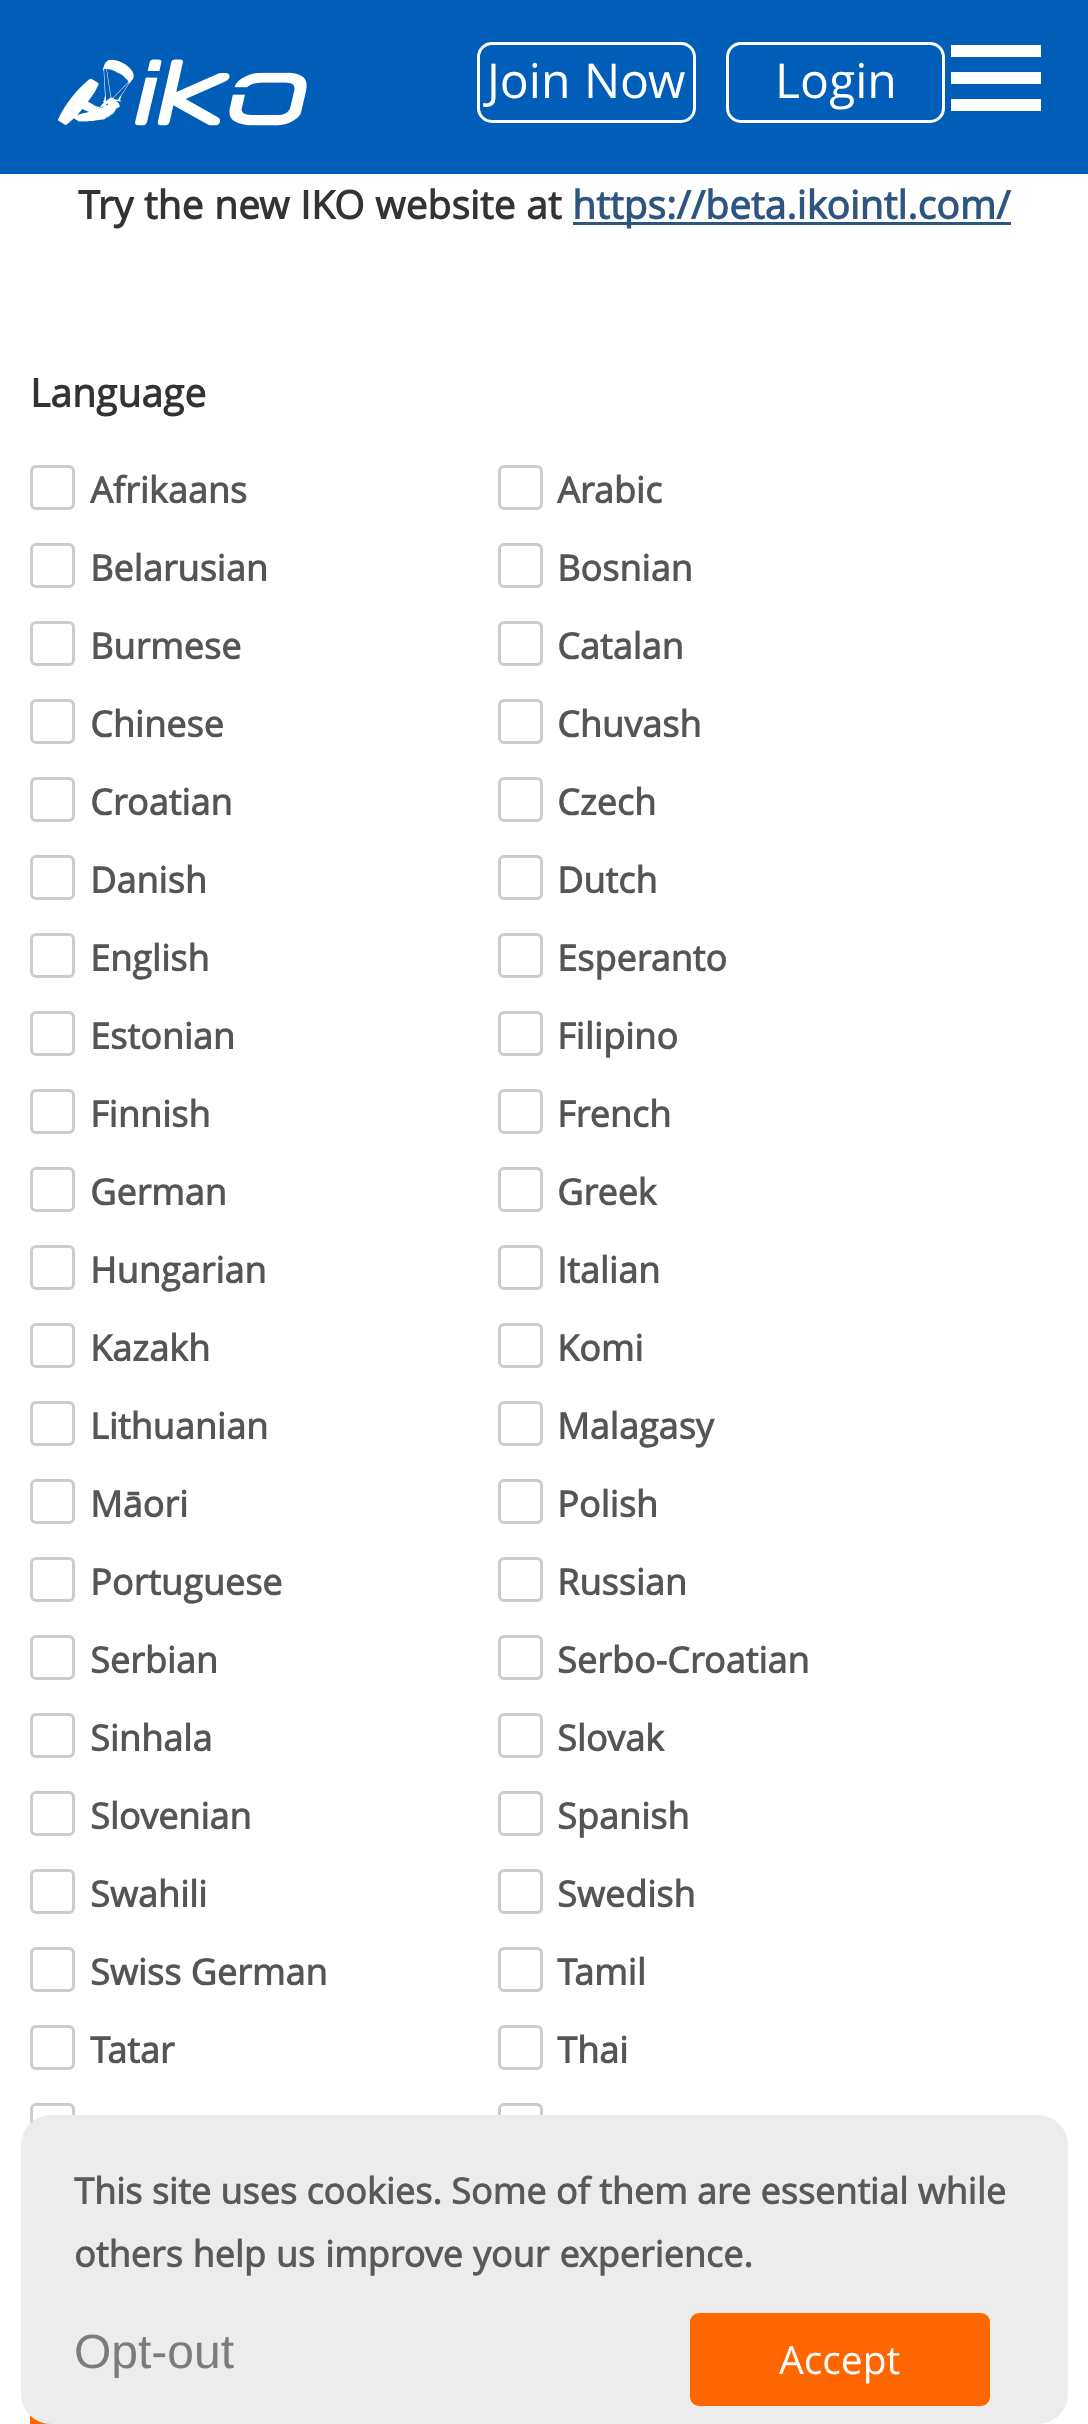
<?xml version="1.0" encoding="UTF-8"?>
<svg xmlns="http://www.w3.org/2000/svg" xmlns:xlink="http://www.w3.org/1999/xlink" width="1088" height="2424">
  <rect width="100%" height="100%" fill="#ffffff" />
  <rect width="1088" height="174" fill="#005eb8" />
  <image x="58" y="59" width="249" height="67" xlink:href="image1.png" />
  <rect x="478.5" y="43.5" width="216" height="78" rx="13.5" fill="none" stroke="#ffffff" stroke-width="3" />
  <rect x="727.5" y="43.5" width="216" height="78" rx="13.5" fill="none" stroke="#ffffff" stroke-width="3" />
  <rect x="951" y="45" width="90" height="12" fill="#ffffff" />
  <rect x="951" y="72" width="90" height="12" fill="#ffffff" />
  <rect x="951" y="99" width="90" height="12" fill="#ffffff" />
  <rect x="573" y="222" width="438" height="3" fill="#2e5481" />
  <rect x="31.5" y="466.5" width="42" height="42" rx="4.5" fill="none" stroke="#cccccc" stroke-width="3" />
  <rect x="499.5" y="466.5" width="42" height="42" rx="4.5" fill="none" stroke="#cccccc" stroke-width="3" />
  <rect x="31.5" y="544.5" width="42" height="42" rx="4.5" fill="none" stroke="#cccccc" stroke-width="3" />
  <rect x="499.5" y="544.5" width="42" height="42" rx="4.5" fill="none" stroke="#cccccc" stroke-width="3" />
  <rect x="31.5" y="622.5" width="42" height="42" rx="4.5" fill="none" stroke="#cccccc" stroke-width="3" />
  <rect x="499.5" y="622.5" width="42" height="42" rx="4.5" fill="none" stroke="#cccccc" stroke-width="3" />
  <rect x="31.5" y="700.5" width="42" height="42" rx="4.5" fill="none" stroke="#cccccc" stroke-width="3" />
  <rect x="499.5" y="700.5" width="42" height="42" rx="4.5" fill="none" stroke="#cccccc" stroke-width="3" />
  <rect x="31.5" y="778.5" width="42" height="42" rx="4.5" fill="none" stroke="#cccccc" stroke-width="3" />
  <rect x="499.5" y="778.5" width="42" height="42" rx="4.5" fill="none" stroke="#cccccc" stroke-width="3" />
  <rect x="31.5" y="856.5" width="42" height="42" rx="4.5" fill="none" stroke="#cccccc" stroke-width="3" />
  <rect x="499.5" y="856.5" width="42" height="42" rx="4.5" fill="none" stroke="#cccccc" stroke-width="3" />
  <rect x="31.5" y="934.5" width="42" height="42" rx="4.5" fill="none" stroke="#cccccc" stroke-width="3" />
  <rect x="499.5" y="934.5" width="42" height="42" rx="4.5" fill="none" stroke="#cccccc" stroke-width="3" />
  <rect x="31.5" y="1012.5" width="42" height="42" rx="4.5" fill="none" stroke="#cccccc" stroke-width="3" />
  <rect x="499.5" y="1012.5" width="42" height="42" rx="4.5" fill="none" stroke="#cccccc" stroke-width="3" />
  <rect x="31.5" y="1090.5" width="42" height="42" rx="4.5" fill="none" stroke="#cccccc" stroke-width="3" />
  <rect x="499.5" y="1090.5" width="42" height="42" rx="4.5" fill="none" stroke="#cccccc" stroke-width="3" />
  <rect x="31.5" y="1168.5" width="42" height="42" rx="4.5" fill="none" stroke="#cccccc" stroke-width="3" />
  <rect x="499.5" y="1168.5" width="42" height="42" rx="4.5" fill="none" stroke="#cccccc" stroke-width="3" />
  <rect x="31.5" y="1246.5" width="42" height="42" rx="4.5" fill="none" stroke="#cccccc" stroke-width="3" />
  <rect x="499.5" y="1246.5" width="42" height="42" rx="4.5" fill="none" stroke="#cccccc" stroke-width="3" />
  <rect x="31.5" y="1324.5" width="42" height="42" rx="4.5" fill="none" stroke="#cccccc" stroke-width="3" />
  <rect x="499.5" y="1324.5" width="42" height="42" rx="4.5" fill="none" stroke="#cccccc" stroke-width="3" />
  <rect x="31.5" y="1402.5" width="42" height="42" rx="4.5" fill="none" stroke="#cccccc" stroke-width="3" />
  <rect x="499.5" y="1402.5" width="42" height="42" rx="4.5" fill="none" stroke="#cccccc" stroke-width="3" />
  <rect x="31.5" y="1480.5" width="42" height="42" rx="4.5" fill="none" stroke="#cccccc" stroke-width="3" />
  <rect x="499.5" y="1480.5" width="42" height="42" rx="4.5" fill="none" stroke="#cccccc" stroke-width="3" />
  <rect x="31.5" y="1558.5" width="42" height="42" rx="4.5" fill="none" stroke="#cccccc" stroke-width="3" />
  <rect x="499.5" y="1558.5" width="42" height="42" rx="4.5" fill="none" stroke="#cccccc" stroke-width="3" />
  <rect x="31.5" y="1636.5" width="42" height="42" rx="4.5" fill="none" stroke="#cccccc" stroke-width="3" />
  <rect x="499.5" y="1636.5" width="42" height="42" rx="4.5" fill="none" stroke="#cccccc" stroke-width="3" />
  <rect x="31.5" y="1714.5" width="42" height="42" rx="4.5" fill="none" stroke="#cccccc" stroke-width="3" />
  <rect x="499.5" y="1714.5" width="42" height="42" rx="4.5" fill="none" stroke="#cccccc" stroke-width="3" />
  <rect x="31.5" y="1792.5" width="42" height="42" rx="4.5" fill="none" stroke="#cccccc" stroke-width="3" />
  <rect x="499.5" y="1792.5" width="42" height="42" rx="4.5" fill="none" stroke="#cccccc" stroke-width="3" />
  <rect x="31.5" y="1870.5" width="42" height="42" rx="4.5" fill="none" stroke="#cccccc" stroke-width="3" />
  <rect x="499.5" y="1870.5" width="42" height="42" rx="4.5" fill="none" stroke="#cccccc" stroke-width="3" />
  <rect x="31.5" y="1948.5" width="42" height="42" rx="4.5" fill="none" stroke="#cccccc" stroke-width="3" />
  <rect x="499.5" y="1948.5" width="42" height="42" rx="4.5" fill="none" stroke="#cccccc" stroke-width="3" />
  <rect x="31.5" y="2026.5" width="42" height="42" rx="4.5" fill="none" stroke="#cccccc" stroke-width="3" />
  <rect x="499.5" y="2026.5" width="42" height="42" rx="4.5" fill="none" stroke="#cccccc" stroke-width="3" />
  <rect x="31.5" y="2104.5" width="42" height="42" rx="4.5" fill="none" stroke="#cccccc" stroke-width="3" />
  <rect x="499.5" y="2104.5" width="42" height="42" rx="4.5" fill="none" stroke="#cccccc" stroke-width="3" />
  <rect x="30" y="2415" width="21" height="9" fill="#ff6600" />
  <rect x="21" y="2115" width="1047" height="309" rx="30" fill="#ececec" />
  <rect x="690" y="2313" width="300" height="93" rx="9" fill="#ff6600" />
  <text x="487" y="98" word-spacing="1" style="font-family: Open Sans; font-size: 48px; fill: #ffffff">Join Now</text>
  <text x="775" y="98" style="font-family: Open Sans; font-size: 48px; fill: #ffffff">Login</text>
  <text x="78" y="219" word-spacing="0.5" style="font-family: Open Sans; font-size: 39px; font-weight: bold; fill: #333333">Try the new IKO website at</text>
  <text x="572" y="219" style="font-family: Open Sans; font-size: 39px; font-weight: bold; fill: #2e5481">https://beta.ikointl.com/</text>
  <text x="30" y="407" style="font-family: Open Sans; font-size: 39px; font-weight: bold; fill: #333333">Language</text>
  <text x="90" y="503" style="font-family: Open Sans; font-size: 36px; font-weight: bold; fill: #555555">Afrikaans</text>
  <text x="557" y="503" style="font-family: Open Sans; font-size: 36px; font-weight: bold; fill: #555555">Arabic</text>
  <text x="90" y="581" style="font-family: Open Sans; font-size: 36px; font-weight: bold; fill: #555555">Belarusian</text>
  <text x="557" y="581" style="font-family: Open Sans; font-size: 36px; font-weight: bold; fill: #555555">Bosnian</text>
  <text x="90" y="659" style="font-family: Open Sans; font-size: 36px; font-weight: bold; fill: #555555">Burmese</text>
  <text x="557" y="659" style="font-family: Open Sans; font-size: 36px; font-weight: bold; fill: #555555">Catalan</text>
  <text x="90" y="737" style="font-family: Open Sans; font-size: 36px; font-weight: bold; fill: #555555">Chinese</text>
  <text x="557" y="737" style="font-family: Open Sans; font-size: 36px; font-weight: bold; fill: #555555">Chuvash</text>
  <text x="90" y="815" style="font-family: Open Sans; font-size: 36px; font-weight: bold; fill: #555555">Croatian</text>
  <text x="557" y="815" style="font-family: Open Sans; font-size: 36px; font-weight: bold; fill: #555555">Czech</text>
  <text x="90" y="893" style="font-family: Open Sans; font-size: 36px; font-weight: bold; fill: #555555">Danish</text>
  <text x="557" y="893" style="font-family: Open Sans; font-size: 36px; font-weight: bold; fill: #555555">Dutch</text>
  <text x="90" y="971" style="font-family: Open Sans; font-size: 36px; font-weight: bold; fill: #555555">English</text>
  <text x="557" y="971" style="font-family: Open Sans; font-size: 36px; font-weight: bold; fill: #555555">Esperanto</text>
  <text x="90" y="1049" style="font-family: Open Sans; font-size: 36px; font-weight: bold; fill: #555555">Estonian</text>
  <text x="557" y="1049" style="font-family: Open Sans; font-size: 36px; font-weight: bold; fill: #555555">Filipino</text>
  <text x="90" y="1127" style="font-family: Open Sans; font-size: 36px; font-weight: bold; fill: #555555">Finnish</text>
  <text x="557" y="1127" style="font-family: Open Sans; font-size: 36px; font-weight: bold; fill: #555555">French</text>
  <text x="90" y="1205" style="font-family: Open Sans; font-size: 36px; font-weight: bold; fill: #555555">German</text>
  <text x="557" y="1205" style="font-family: Open Sans; font-size: 36px; font-weight: bold; fill: #555555">Greek</text>
  <text x="90" y="1283" style="font-family: Open Sans; font-size: 36px; font-weight: bold; fill: #555555">Hungarian</text>
  <text x="557" y="1283" style="font-family: Open Sans; font-size: 36px; font-weight: bold; fill: #555555">Italian</text>
  <text x="90" y="1361" style="font-family: Open Sans; font-size: 36px; font-weight: bold; fill: #555555">Kazakh</text>
  <text x="557" y="1361" style="font-family: Open Sans; font-size: 36px; font-weight: bold; fill: #555555">Komi</text>
  <text x="90" y="1439" style="font-family: Open Sans; font-size: 36px; font-weight: bold; fill: #555555">Lithuanian</text>
  <text x="557" y="1439" style="font-family: Open Sans; font-size: 36px; font-weight: bold; fill: #555555">Malagasy</text>
  <text x="90" y="1517" style="font-family: Open Sans; font-size: 36px; font-weight: bold; fill: #555555">Māori</text>
  <text x="557" y="1517" style="font-family: Open Sans; font-size: 36px; font-weight: bold; fill: #555555">Polish</text>
  <text x="90" y="1595" style="font-family: Open Sans; font-size: 36px; font-weight: bold; fill: #555555">Portuguese</text>
  <text x="557" y="1595" style="font-family: Open Sans; font-size: 36px; font-weight: bold; fill: #555555">Russian</text>
  <text x="90" y="1673" style="font-family: Open Sans; font-size: 36px; font-weight: bold; fill: #555555">Serbian</text>
  <text x="557" y="1673" style="font-family: Open Sans; font-size: 36px; font-weight: bold; fill: #555555">Serbo-Croatian</text>
  <text x="90" y="1751" style="font-family: Open Sans; font-size: 36px; font-weight: bold; fill: #555555">Sinhala</text>
  <text x="557" y="1751" style="font-family: Open Sans; font-size: 36px; font-weight: bold; fill: #555555">Slovak</text>
  <text x="90" y="1829" style="font-family: Open Sans; font-size: 36px; font-weight: bold; fill: #555555">Slovenian</text>
  <text x="557" y="1829" style="font-family: Open Sans; font-size: 36px; font-weight: bold; fill: #555555">Spanish</text>
  <text x="90" y="1907" style="font-family: Open Sans; font-size: 36px; font-weight: bold; fill: #555555">Swahili</text>
  <text x="557" y="1907" style="font-family: Open Sans; font-size: 36px; font-weight: bold; fill: #555555">Swedish</text>
  <text x="90" y="1985" style="font-family: Open Sans; font-size: 36px; font-weight: bold; fill: #555555">Swiss German</text>
  <text x="557" y="1985" style="font-family: Open Sans; font-size: 36px; font-weight: bold; fill: #555555">Tamil</text>
  <text x="90" y="2063" style="font-family: Open Sans; font-size: 36px; font-weight: bold; fill: #555555">Tatar</text>
  <text x="557" y="2063" style="font-family: Open Sans; font-size: 36px; font-weight: bold; fill: #555555">Thai</text>
  <text x="74" y="2204" style="font-family: Open Sans; font-size: 36px; font-weight: bold; fill: #58595b">This site uses cookies. Some of them are essential while</text>
  <text x="74" y="2267" word-spacing="0.5" style="font-family: Open Sans; font-size: 36px; font-weight: bold; fill: #58595b">others help us improve your experience.</text>
  <text x="74" y="2368" style="font-family: Liberation Sans; font-size: 48px; fill: #7c7c7c">Opt-out</text>
  <text x="779" y="2374" style="font-family: Open Sans; font-size: 39px; fill: #ffffff">Accept</text>
</svg>
